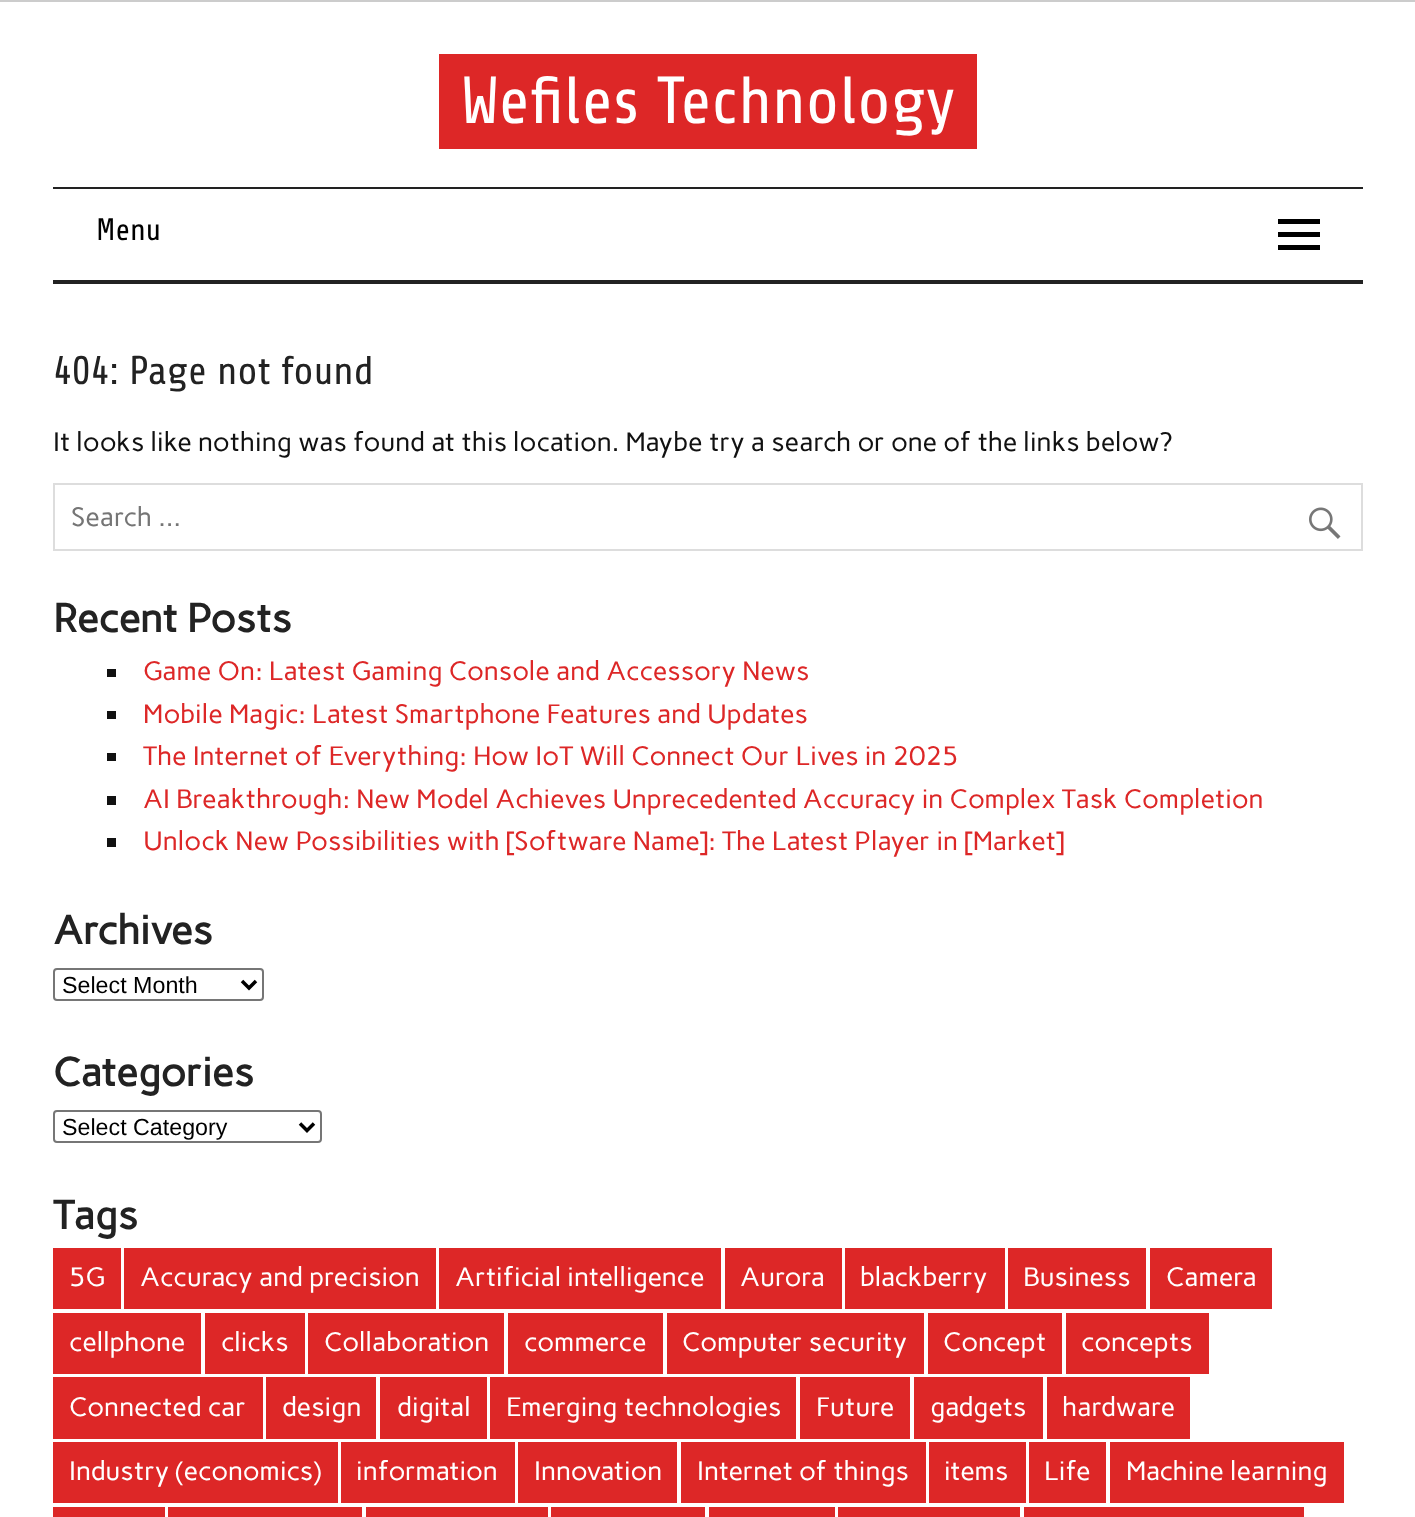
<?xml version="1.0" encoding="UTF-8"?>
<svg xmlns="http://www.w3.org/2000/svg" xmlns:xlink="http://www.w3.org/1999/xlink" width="1415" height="1517">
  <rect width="100%" height="100%" fill="#ffffff" />
  <rect width="1415" height="2" fill="#cccccc" />
  <rect x="439" y="54" width="538" height="95" fill="#dd2727" />
  <rect x="53" y="187" width="1310" height="2" fill="#222222" />
  <rect x="53" y="280" width="1310" height="4" fill="#222222" />
  <path d="M 1278 250 v -5 h 42 v 5 z m 0 -31 h 42 v 5 h -42 z m 0 18 v -5 h 42 v 5 z" fill="#000000" />
  <rect x="54" y="484" width="1308" height="66" fill="none" stroke="#dddddd" stroke-width="2" />
  <image x="1309" y="507" width="32" height="32" xlink:href="image1.png" />
  <rect x="107" y="669" width="9" height="8" fill="#111111" />
  <rect x="107" y="711" width="9" height="8" fill="#111111" />
  <rect x="107" y="753" width="9" height="8" fill="#111111" />
  <rect x="107" y="796" width="9" height="9" fill="#111111" />
  <rect x="107" y="838" width="9" height="9" fill="#111111" />
  <rect x="54" y="969" width="209" height="31" rx="3" fill="none" stroke="#767676" stroke-width="2" />
  <path d="M 242 981 l 7 7 l 7 -7" fill="none" stroke="#000000" stroke-width="3.5" />
  <rect x="54" y="1111" width="267" height="31" rx="3" fill="none" stroke="#767676" stroke-width="2" />
  <path d="M 300 1123.5 l 7 7 l 7 -7" fill="none" stroke="#000000" stroke-width="3.5" />
  <rect x="53" y="1248" width="68" height="61" fill="#dd2727" />
  <rect x="124" y="1248" width="312" height="61" fill="#dd2727" />
  <rect x="439" y="1248" width="282" height="61" fill="#dd2727" />
  <rect x="725" y="1248" width="117" height="61" fill="#dd2727" />
  <rect x="845" y="1248" width="160" height="61" fill="#dd2727" />
  <rect x="1008" y="1248" width="138" height="61" fill="#dd2727" />
  <rect x="1150" y="1248" width="122" height="61" fill="#dd2727" />
  <rect x="53" y="1313" width="148" height="61" fill="#dd2727" />
  <rect x="205" y="1313" width="100" height="61" fill="#dd2727" />
  <rect x="308" y="1313" width="196" height="61" fill="#dd2727" />
  <rect x="508" y="1313" width="155" height="61" fill="#dd2727" />
  <rect x="667" y="1313" width="257" height="61" fill="#dd2727" />
  <rect x="928" y="1313" width="134" height="61" fill="#dd2727" />
  <rect x="1066" y="1313" width="143" height="61" fill="#dd2727" />
  <rect x="53" y="1377" width="210" height="62" fill="#dd2727" />
  <rect x="266" y="1377" width="110" height="62" fill="#dd2727" />
  <rect x="380" y="1377" width="107" height="62" fill="#dd2727" />
  <rect x="490" y="1377" width="306" height="62" fill="#dd2727" />
  <rect x="800" y="1377" width="110" height="62" fill="#dd2727" />
  <rect x="914" y="1377" width="129" height="62" fill="#dd2727" />
  <rect x="1047" y="1377" width="143" height="62" fill="#dd2727" />
  <rect x="53" y="1442" width="285" height="61" fill="#dd2727" />
  <rect x="341" y="1442" width="174" height="61" fill="#dd2727" />
  <rect x="518" y="1442" width="159" height="61" fill="#dd2727" />
  <rect x="681" y="1442" width="245" height="61" fill="#dd2727" />
  <rect x="929" y="1442" width="97" height="61" fill="#dd2727" />
  <rect x="1029" y="1442" width="77" height="61" fill="#dd2727" />
  <rect x="1110" y="1442" width="234" height="61" fill="#dd2727" />
  <rect x="53" y="1507" width="112" height="10" fill="#dd2727" />
  <rect x="168" y="1507" width="194" height="10" fill="#dd2727" />
  <rect x="366" y="1507" width="182" height="10" fill="#dd2727" />
  <rect x="551" y="1507" width="154" height="10" fill="#dd2727" />
  <rect x="709" y="1507" width="126" height="10" fill="#dd2727" />
  <rect x="838" y="1507" width="182" height="10" fill="#dd2727" />
  <rect x="1024" y="1507" width="280" height="10" fill="#dd2727" />
  <text x="460" y="123" style="font-family: Share; font-size: 66.5px; fill: #ffffff">Wefiles Technology</text>
  <text x="96" y="240" style="font-family: Share; font-size: 31px; fill: #000000">Menu</text>
  <text x="53" y="384" style="font-family: Share; font-size: 40px; fill: #222222">404: Page not found</text>
  <text x="53" y="451" style="font-family: Carme; font-size: 26.6px; fill: #111111">It looks like nothing was found at this location. Maybe try a search or one of the links below?</text>
  <text x="71" y="526" style="font-family: Carme; font-size: 26.6px; fill: #757575">Search …</text>
  <text x="53" y="632" style="font-family: Carme; font-size: 40px; font-weight: bold; fill: #222222">Recent Posts</text>
  <text x="143" y="680" style="font-family: Carme; font-size: 26.6px; fill: #dd2727">Game On: Latest Gaming Console and Accessory News</text>
  <text x="143" y="723" style="font-family: Carme; font-size: 26.6px; fill: #dd2727">Mobile Magic: Latest Smartphone Features and Updates</text>
  <text x="143" y="765" style="font-family: Carme; font-size: 26.6px; fill: #dd2727">The Internet of Everything: How IoT Will Connect Our Lives in 2025</text>
  <text x="143" y="808" style="font-family: Carme; font-size: 26.6px; fill: #dd2727">AI Breakthrough: New Model Achieves Unprecedented Accuracy in Complex Task Completion</text>
  <text x="143" y="850" style="font-family: Carme; font-size: 26.6px; fill: #dd2727">Unlock New Possibilities with [Software Name]: The Latest Player in [Market]</text>
  <text x="53" y="944" style="font-family: Carme; font-size: 40px; font-weight: bold; fill: #222222">Archives</text>
  <text x="62" y="993" style="font-family: Liberation Sans; font-size: 23.25px; fill: #000000">Select Month</text>
  <text x="53" y="1086" style="font-family: Carme; font-size: 40px; font-weight: bold; fill: #222222">Categories</text>
  <text x="62" y="1135" style="font-family: Liberation Sans; font-size: 23.25px; fill: #000000">Select Category</text>
  <text x="53" y="1229" style="font-family: Carme; font-size: 40px; font-weight: bold; fill: #222222">Tags</text>
  <text x="69" y="1286" style="font-family: Carme; font-size: 26.6px; fill: #ffffff">5G</text>
  <text x="140" y="1286" style="font-family: Carme; font-size: 26.6px; fill: #ffffff">Accuracy and precision</text>
  <text x="455" y="1286" style="font-family: Carme; font-size: 26.6px; fill: #ffffff">Artificial intelligence</text>
  <text x="740" y="1286" style="font-family: Carme; font-size: 26.6px; fill: #ffffff">Aurora</text>
  <text x="860" y="1286" style="font-family: Carme; font-size: 26.6px; fill: #ffffff">blackberry</text>
  <text x="1023" y="1286" style="font-family: Carme; font-size: 26.6px; fill: #ffffff">Business</text>
  <text x="1166" y="1286" style="font-family: Carme; font-size: 26.6px; fill: #ffffff">Camera</text>
  <text x="69" y="1351" style="font-family: Carme; font-size: 26.6px; fill: #ffffff">cellphone</text>
  <text x="221" y="1351" style="font-family: Carme; font-size: 26.6px; fill: #ffffff">clicks</text>
  <text x="324" y="1351" style="font-family: Carme; font-size: 26.6px; fill: #ffffff">Collaboration</text>
  <text x="524" y="1351" style="font-family: Carme; font-size: 26.6px; fill: #ffffff">commerce</text>
  <text x="682" y="1351" style="font-family: Carme; font-size: 26.6px; fill: #ffffff">Computer security</text>
  <text x="943" y="1351" style="font-family: Carme; font-size: 26.6px; fill: #ffffff">Concept</text>
  <text x="1081" y="1351" style="font-family: Carme; font-size: 26.6px; fill: #ffffff">concepts</text>
  <text x="69" y="1416" style="font-family: Carme; font-size: 26.6px; fill: #ffffff">Connected car</text>
  <text x="282" y="1416" style="font-family: Carme; font-size: 26.6px; fill: #ffffff">design</text>
  <text x="397" y="1416" style="font-family: Carme; font-size: 26.6px; fill: #ffffff">digital</text>
  <text x="506" y="1416" style="font-family: Carme; font-size: 26.6px; fill: #ffffff">Emerging technologies</text>
  <text x="816" y="1416" style="font-family: Carme; font-size: 26.6px; fill: #ffffff">Future</text>
  <text x="930" y="1416" style="font-family: Carme; font-size: 26.6px; fill: #ffffff">gadgets</text>
  <text x="1062" y="1416" style="font-family: Carme; font-size: 26.6px; fill: #ffffff">hardware</text>
  <text x="69" y="1480" style="font-family: Carme; font-size: 26.6px; fill: #ffffff">Industry (economics)</text>
  <text x="356" y="1480" style="font-family: Carme; font-size: 26.6px; fill: #ffffff">information</text>
  <text x="534" y="1480" style="font-family: Carme; font-size: 26.6px; fill: #ffffff">Innovation</text>
  <text x="697" y="1480" style="font-family: Carme; font-size: 26.6px; fill: #ffffff">Internet of things</text>
  <text x="944" y="1480" style="font-family: Carme; font-size: 26.6px; fill: #ffffff">items</text>
  <text x="1044" y="1480" style="font-family: Carme; font-size: 26.6px; fill: #ffffff">Life</text>
  <text x="1126" y="1480" style="font-family: Carme; font-size: 26.6px; fill: #ffffff">Machine learning</text>
</svg>
